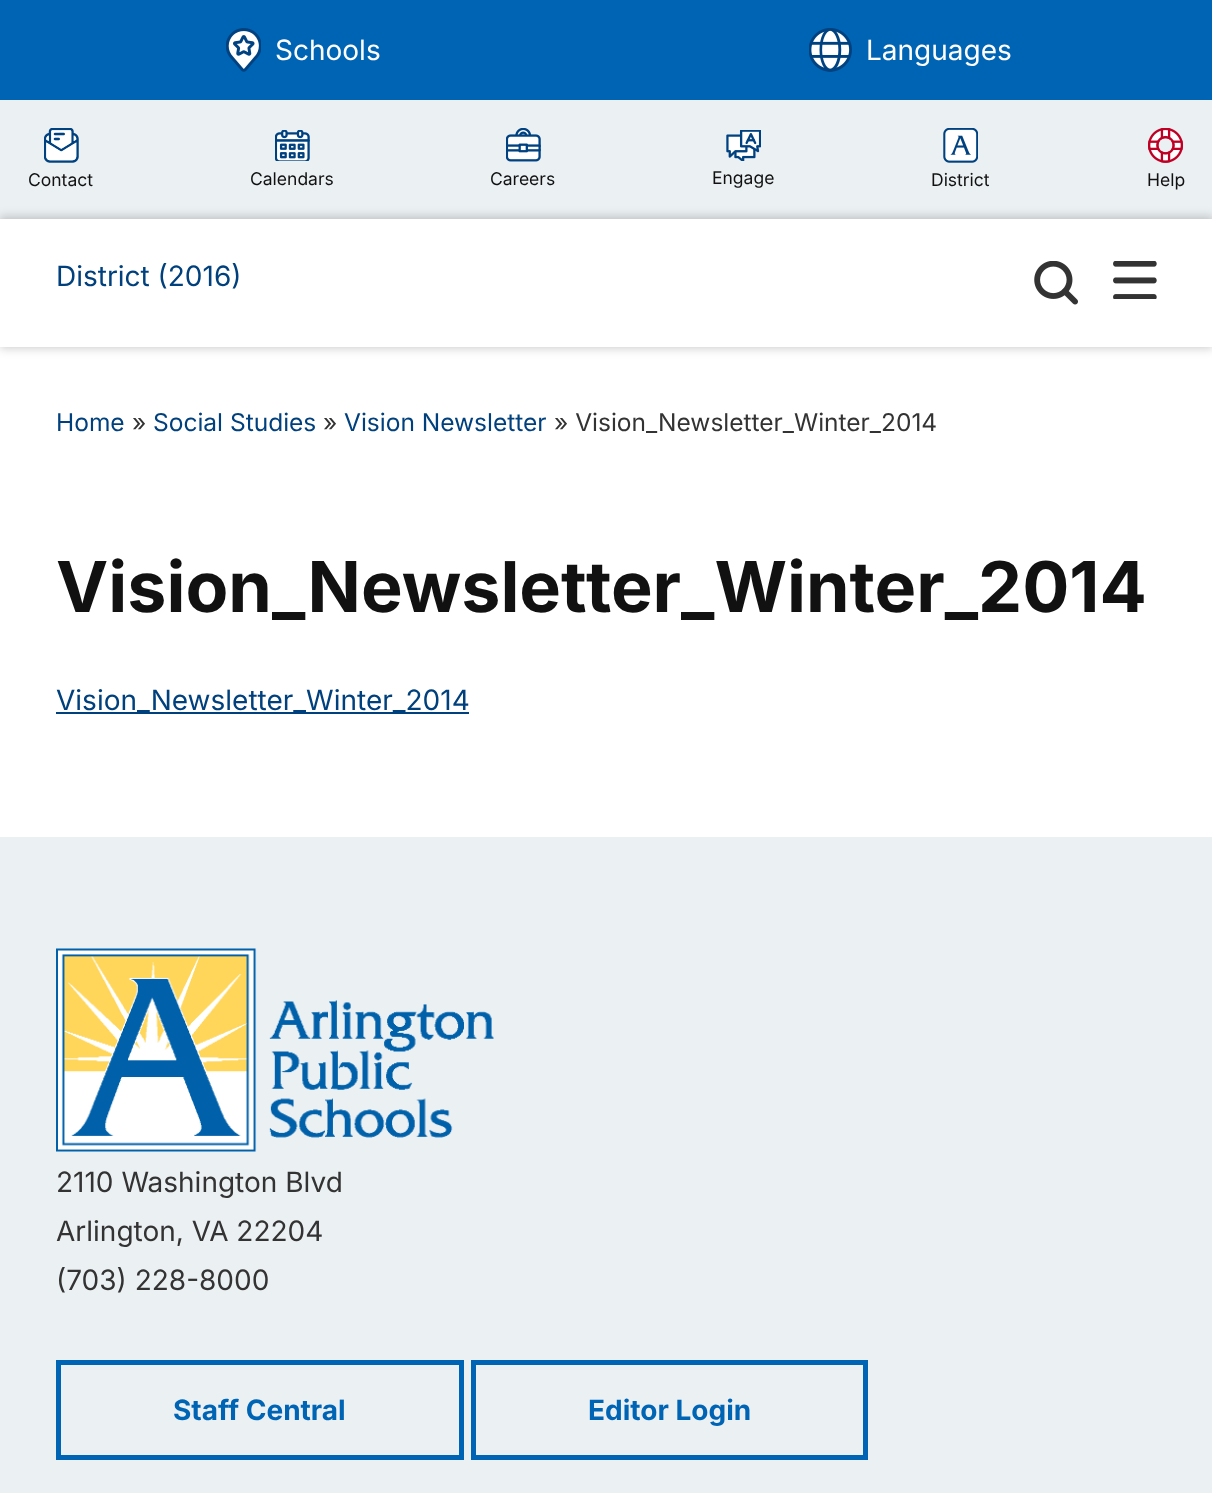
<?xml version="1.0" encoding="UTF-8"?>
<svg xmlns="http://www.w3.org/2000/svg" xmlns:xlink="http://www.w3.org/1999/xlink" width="1212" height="1493">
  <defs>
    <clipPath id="clip1"><path d="M 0 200 h 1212 v 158 h -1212 z m 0 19 h 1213 v 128 h -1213 z" clip-rule="evenodd" /></clipPath>
    <clipPath id="clip2"><path d="M 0 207 h 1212 v 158 h -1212 z m 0 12 h 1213 v 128 h -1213 z" clip-rule="evenodd" /></clipPath>
  </defs>
  <rect width="100%" height="100%" fill="#ffffff" />
  <rect width="1212" height="100" fill="#0064b5" />
  <image x="226" y="28" width="35" height="44" xlink:href="image1.png" />
  <image x="809" y="28" width="43" height="44" xlink:href="image2.png" />
  <rect y="100" width="1212" height="119" fill="#ebf0f3" />
  <image x="44" y="128" width="35" height="35" xlink:href="image3.png" />
  <image x="275" y="130" width="35" height="31" xlink:href="image4.png" />
  <image x="506" y="128" width="35" height="34" xlink:href="image5.png" />
  <image x="726" y="130" width="35" height="31" xlink:href="image6.png" />
  <image x="943" y="128" width="35" height="35" xlink:href="image7.png" />
  <image x="1148" y="128" width="35" height="35" xlink:href="image8.png" />
  <g clip-path="url(#clip1)">
    <rect y="215" width="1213" height="128" fill="#000000" fill-opacity="0.13" filter="blur(4.5px)" />
  </g>
  <g clip-path="url(#clip2)">
    <rect y="222" width="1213" height="128" fill="#000000" fill-opacity="0.13" filter="blur(4.5px)" />
  </g>
  <image x="1034" y="261" width="44" height="44" xlink:href="image9.png" />
  <image x="1113" y="261" width="44" height="38" xlink:href="image10.png" />
  <rect x="56" y="712" width="413" height="2" fill="#00407c" />
  <rect y="837" width="1212" height="656" fill="#ebf0f3" />
  <image x="56" y="948" width="438" height="204" xlink:href="image11.png" />
  <rect x="58.5" y="1362.5" width="403" height="95" fill="none" stroke="#0064b5" stroke-width="5" />
  <rect x="473.5" y="1362.5" width="392" height="95" fill="none" stroke="#0064b5" stroke-width="5" />
  <text x="275" y="60" style="font-family: Inter; font-size: 28px; fill: #ffffff">Schools</text>
  <text x="866" y="60" style="font-family: Inter; font-size: 28px; fill: #ffffff">Languages</text>
  <text x="28" y="186" style="font-family: Inter; font-size: 17.5px; fill: #111111">Contact</text>
  <text x="250" y="185" style="font-family: Inter; font-size: 17.5px; fill: #111111">Calendars</text>
  <text x="490" y="185" style="font-family: Inter; font-size: 17.5px; fill: #111111">Careers</text>
  <text x="712" y="184" style="font-family: Inter; font-size: 17.5px; fill: #111111">Engage</text>
  <text x="931" y="186" style="font-family: Inter; font-size: 17.5px; fill: #111111">District</text>
  <text x="1147" y="186" style="font-family: Inter; font-size: 17.5px; fill: #111111">Help</text>
  <text x="56" y="286" style="font-family: Inter; font-size: 28px; fill: #00407c">District (2016)</text>
  <text x="56" y="431" style="font-family: Inter; font-size: 24.5px; fill: #00407c">Home</text>
  <text x="132" y="431" style="font-family: Inter; font-size: 24.5px; fill: #333333">»</text>
  <text x="153" y="431" style="font-family: Inter; font-size: 24.5px; fill: #00407c">Social Studies</text>
  <text x="323" y="431" style="font-family: Inter; font-size: 24.5px; fill: #333333">»</text>
  <text x="344" y="431" style="font-family: Inter; font-size: 24.5px; fill: #00407c">Vision Newsletter</text>
  <text x="554" y="431" style="font-family: Inter; font-size: 24.5px; fill: #333333">» Vision_Newsletter_Winter_2014</text>
  <text x="56" y="612" style="font-family: Inter; font-size: 70px; font-weight: bold; fill: #111111">Vision_Newsletter_Winter_2014</text>
  <text x="56" y="710" style="font-family: Inter; font-size: 28px; fill: #00407c">Vision_Newsletter_Winter_2014</text>
  <text x="56" y="1192" style="font-family: Inter; font-size: 28px; fill: #333333">2110 Washington Blvd</text>
  <text x="56" y="1241" style="font-family: Inter; font-size: 28px; fill: #333333">Arlington, VA 22204</text>
  <text x="56" y="1290" style="font-family: Inter; font-size: 28px; fill: #333333">(703) 228-8000</text>
  <text x="173" y="1420" style="font-family: Inter; font-size: 28px; font-weight: bold; fill: #0064b5">Staff Central</text>
  <text x="588" y="1420" style="font-family: Inter; font-size: 28px; font-weight: bold; fill: #0064b5">Editor Login</text>
</svg>
